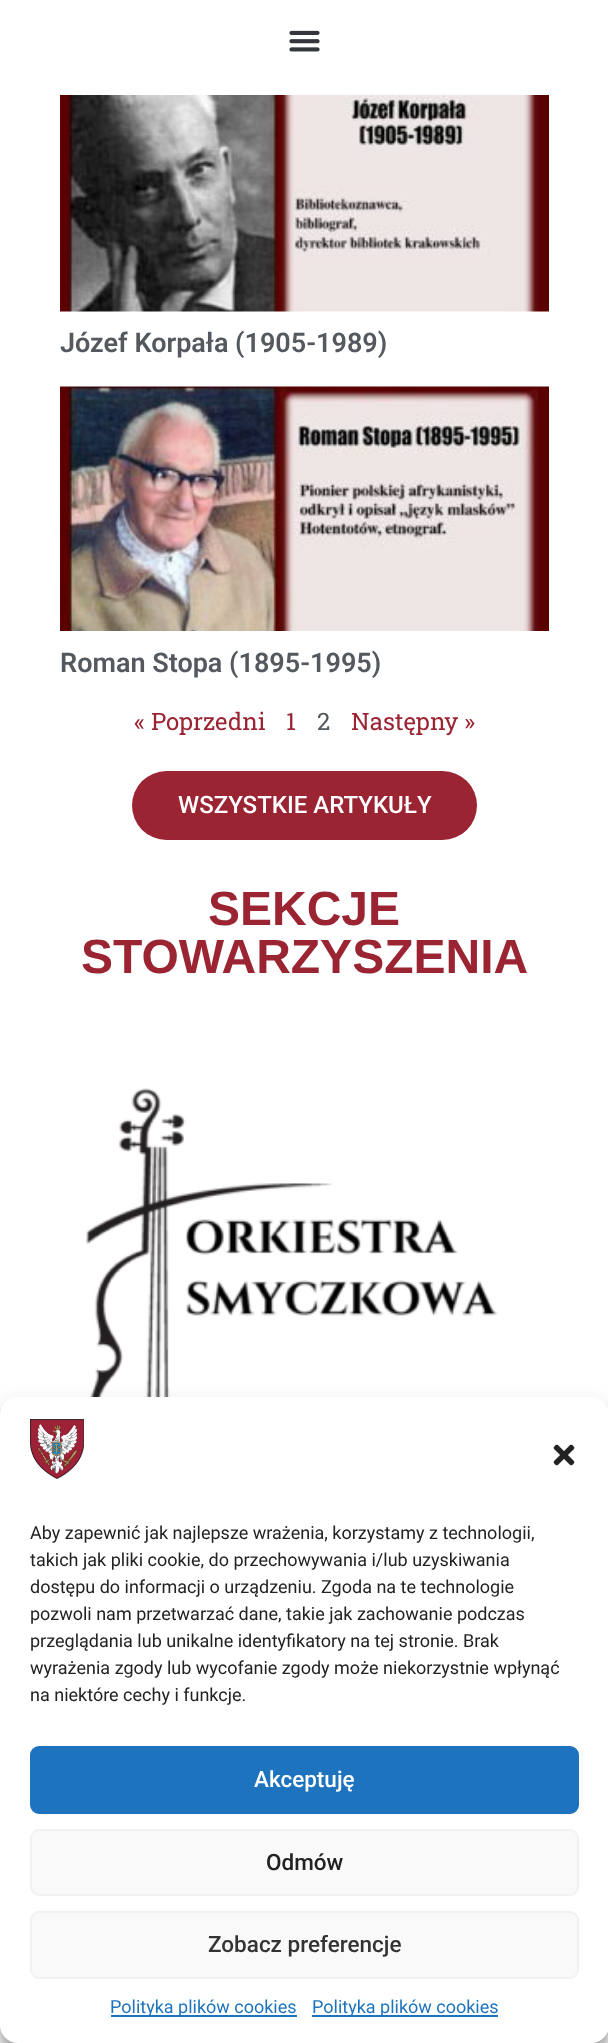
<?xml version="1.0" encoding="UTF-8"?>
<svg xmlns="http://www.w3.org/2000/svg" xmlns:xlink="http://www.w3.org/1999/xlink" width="608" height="2043">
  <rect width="100%" height="100%" fill="#ffffff" />
  <image x="289" y="30" width="31" height="22" xlink:href="image1.png" />
  <image x="60" y="95" width="489" height="217" xlink:href="image2.png" />
  <image x="60" y="386" width="489" height="245" xlink:href="image3.png" />
  <rect x="132" y="771" width="345" height="69" rx="34.5" fill="#9b2433" />
  <image x="86" y="1088" width="412" height="309" xlink:href="image4.png" />
  <rect y="1406" width="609" height="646" rx="18" fill="#000000" fill-opacity="0.23" filter="blur(4.5px)" />
  <rect y="1412" width="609" height="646" rx="18" fill="#000000" fill-opacity="0.19" filter="blur(15px)" />
  <rect y="1397" width="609" height="646" rx="18" fill="#ffffff" />
  <image x="30" y="1419" width="54" height="60" xlink:href="image5.png" />
  <image x="553" y="1444" width="22" height="22" xlink:href="image6.png" />
  <rect x="31" y="1747" width="547" height="66" rx="8" fill="#1e73be" stroke="#1e73be" stroke-width="2" />
  <rect x="31" y="1830" width="547" height="65" rx="8" fill="#f9f9f9" stroke="#f2f2f2" stroke-width="2" />
  <rect x="31" y="1912" width="547" height="66" rx="8" fill="#f9f9f9" stroke="#f2f2f2" stroke-width="2" />
  <rect x="111" y="2015" width="186" height="2" fill="#1e73be" />
  <rect x="312" y="2015" width="186" height="2" fill="#1e73be" />
  <text x="60" y="352" style="font-family: Roboto; font-size: 27px; font-weight: 600; fill: #54595f">Józef Korpała (1905-1989)</text>
  <text x="60" y="672" style="font-family: Roboto; font-size: 27px; font-weight: 600; fill: #54595f">Roman Stopa (1895-1995)</text>
  <text x="134" y="730" style="font-family: Roboto Slab; font-size: 24px; fill: #9b2433">« Poprzedni</text>
  <text x="286" y="730" style="font-family: Roboto Slab; font-size: 24px; fill: #9b2433">1</text>
  <text x="317" y="730" style="font-family: Roboto Slab; font-size: 24px; fill: #54595f">2</text>
  <text x="351" y="730" style="font-family: Roboto Slab; font-size: 24px; fill: #9b2433">Następny »</text>
  <text x="178" y="813" style="font-family: Roboto; font-size: 24px; font-weight: 500; fill: #ffffff">WSZYSTKIE ARTYKUŁY</text>
  <text x="208" y="925" style="font-family: Liberation Sans; font-size: 48px; font-weight: bold; fill: #9b2433">SEKCJE</text>
  <text x="81" y="973" style="font-family: Liberation Sans; font-size: 48px; font-weight: bold; fill: #9b2433">STOWARZYSZENIA</text>
  <text x="30" y="1539" style="font-family: Roboto; font-size: 18px; fill: #222222">Aby zapewnić jak najlepsze wrażenia, korzystamy z technologii,</text>
  <text x="30" y="1566" style="font-family: Roboto; font-size: 18px; fill: #222222">takich jak pliki cookie, do przechowywania i/lub uzyskiwania</text>
  <text x="30" y="1593" style="font-family: Roboto; font-size: 18px; fill: #222222">dostępu do informacji o urządzeniu. Zgoda na te technologie</text>
  <text x="30" y="1620" style="font-family: Roboto; font-size: 18px; fill: #222222">pozwoli nam przetwarzać dane, takie jak zachowanie podczas</text>
  <text x="30" y="1647" style="font-family: Roboto; font-size: 18px; fill: #222222">przeglądania lub unikalne identyfikatory na tej stronie. Brak</text>
  <text x="30" y="1674" style="font-family: Roboto; font-size: 18px; fill: #222222">wyrażenia zgody lub wycofanie zgody może niekorzystnie wpłynąć</text>
  <text x="30" y="1701" style="font-family: Roboto; font-size: 18px; fill: #222222">na niektóre cechy i funkcje.</text>
  <text x="254" y="1787" style="font-family: Roboto; font-size: 22.5px; font-weight: 500; fill: #ffffff">Akceptuję</text>
  <text x="266" y="1870" style="font-family: Roboto; font-size: 22.5px; font-weight: 500; fill: #222222">Odmów</text>
  <text x="208" y="1952" style="font-family: Roboto; font-size: 22.5px; font-weight: 500; fill: #333333">Zobacz preferencje</text>
  <text x="110" y="2013" style="font-family: Roboto; font-size: 18px; fill: #1e73be">Polityka plików cookies</text>
  <text x="312" y="2013" style="font-family: Roboto; font-size: 18px; fill: #1e73be">Polityka plików cookies</text>
</svg>
